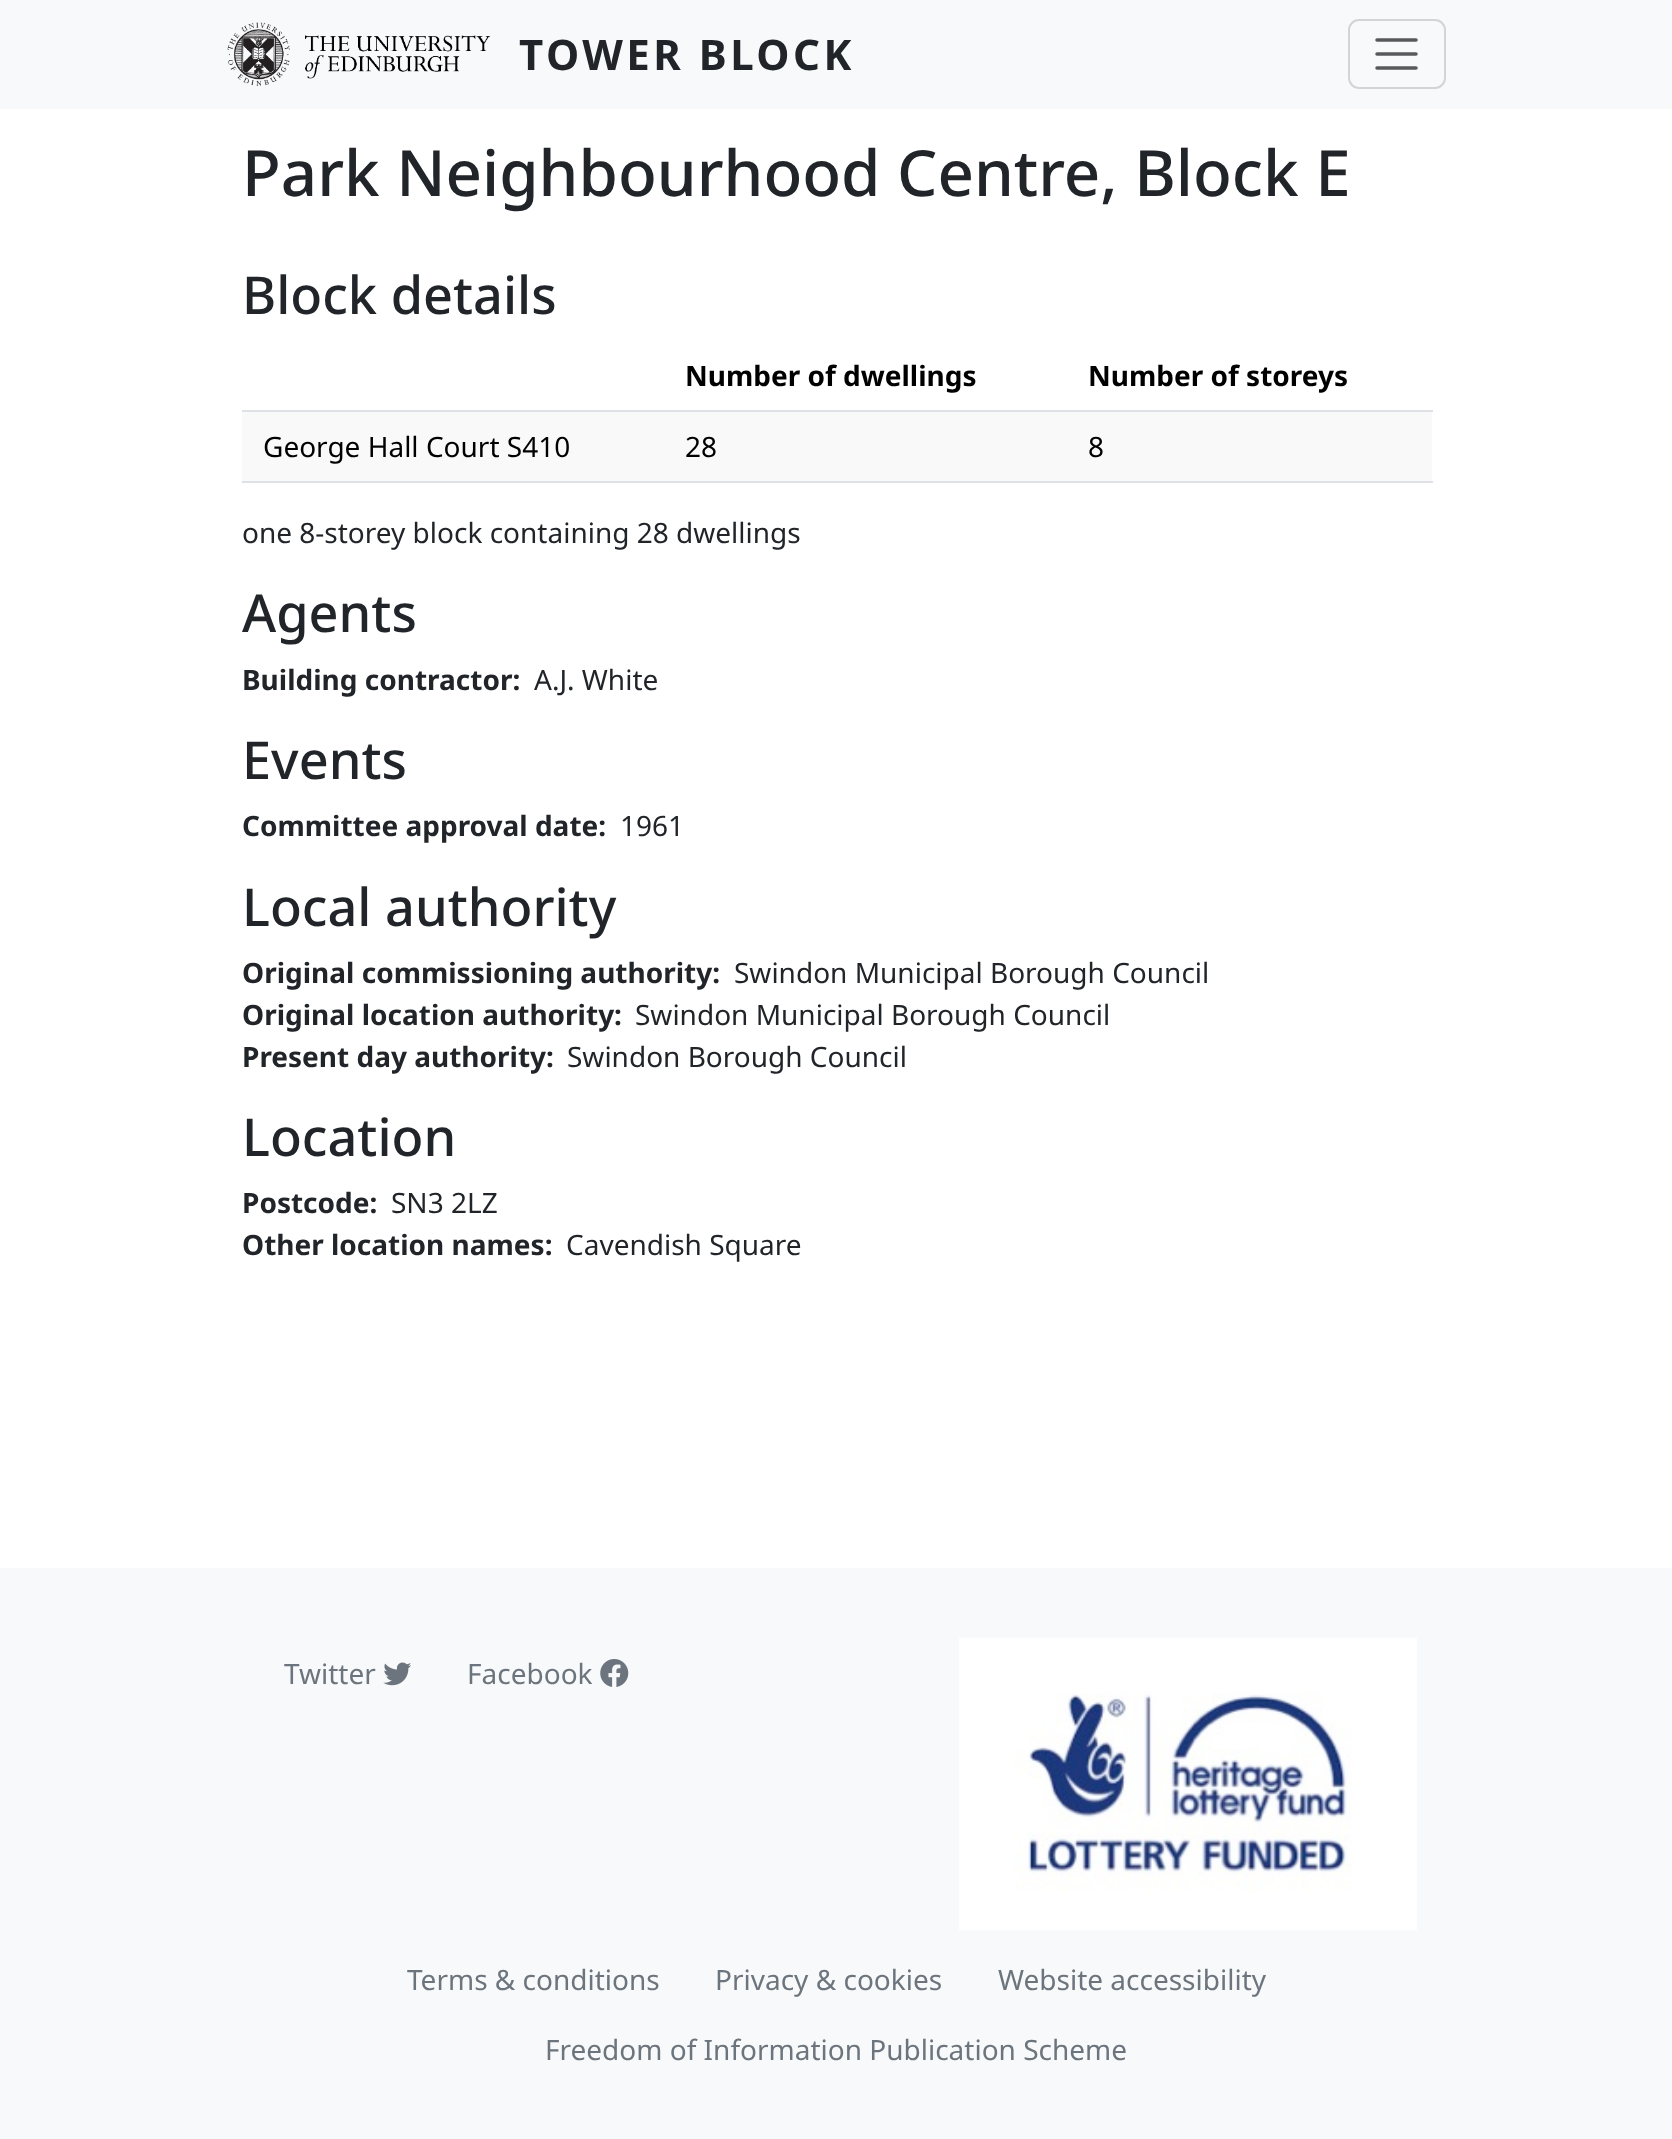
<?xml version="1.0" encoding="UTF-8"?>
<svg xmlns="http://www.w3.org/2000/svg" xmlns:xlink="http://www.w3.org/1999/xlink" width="1672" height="2139">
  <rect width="100%" height="100%" fill="#ffffff" />
  <rect width="1672" height="109" fill="#f8f9fa" />
  <image x="227" y="22" width="263" height="64" xlink:href="image1.png" />
  <rect x="1349" y="20" width="96" height="68" rx="10" fill="none" stroke="#d3d4d5" stroke-width="2" />
  <path d="M 1377 40 h 39 m -39 14 h 39 m -39 14 h 39" fill="none" stroke="#575a5d" stroke-width="3.5" stroke-linecap="round" />
  <rect x="242" y="410" width="1191" height="2" fill="#dee2e6" />
  <rect x="242" y="412" width="1190" height="69" fill="#f9f9f9" />
  <rect x="242" y="481" width="1191" height="2" fill="#dee2e6" />
  <rect y="1568" width="1672" height="571" fill="#f8f9fa" />
  <image x="383" y="1662" width="28" height="24" xlink:href="image2.png" />
  <image x="600" y="1659" width="29" height="28" xlink:href="image3.png" />
  <image x="959" y="1638" width="458" height="292" xlink:href="image4.png" />
  <text x="519" y="70" style="font-family: Noto Sans; font-size: 42px; font-weight: bold; letter-spacing: 3.5px; fill: #212529">TOWER BLOCK</text>
  <text x="242" y="196" style="font-family: Noto Sans; font-size: 63.6px; font-weight: 500; fill: #212529">Park Neighbourhood Centre, Block E</text>
  <text x="242" y="314" style="font-family: Noto Sans; font-size: 52.25px; font-weight: 500; fill: #212529">Block details</text>
  <text x="685" y="386" style="font-family: Noto Sans; font-size: 28px; font-weight: bold; fill: #000000">Number of dwellings</text>
  <text x="1088" y="386" style="font-family: Noto Sans; font-size: 28px; font-weight: bold; fill: #000000">Number of storeys</text>
  <text x="263" y="457" style="font-family: Noto Sans; font-size: 28px; fill: #000000">George Hall Court S410</text>
  <text x="685" y="457" style="font-family: Noto Sans; font-size: 28px; fill: #000000">28</text>
  <text x="1088" y="457" style="font-family: Noto Sans; font-size: 28px; fill: #000000">8</text>
  <text x="242" y="543" style="font-family: Noto Sans; font-size: 28px; fill: #212529">one 8-storey block containing 28 dwellings</text>
  <text x="242" y="632" style="font-family: Noto Sans; font-size: 52.25px; font-weight: 500; fill: #212529">Agents</text>
  <text x="242" y="690" style="font-family: Noto Sans; font-size: 28px; font-weight: bold; fill: #212529">Building contractor:</text>
  <text x="534" y="690" style="font-family: Noto Sans; font-size: 28px; fill: #212529">A.J. White</text>
  <text x="242" y="779" style="font-family: Noto Sans; font-size: 52.25px; font-weight: 500; fill: #212529">Events</text>
  <text x="242" y="836" style="font-family: Noto Sans; font-size: 28px; font-weight: bold; fill: #212529">Committee approval date:</text>
  <text x="620" y="836" style="font-family: Noto Sans; font-size: 28px; fill: #212529">1961</text>
  <text x="242" y="926" style="font-family: Noto Sans; font-size: 52.25px; font-weight: 500; fill: #212529">Local authority</text>
  <text x="242" y="983" style="font-family: Noto Sans; font-size: 28px; font-weight: bold; fill: #212529">Original commissioning authority:</text>
  <text x="734" y="983" style="font-family: Noto Sans; font-size: 28px; fill: #212529">Swindon Municipal Borough Council</text>
  <text x="242" y="1025" style="font-family: Noto Sans; font-size: 28px; font-weight: bold; fill: #212529">Original location authority:</text>
  <text x="635" y="1025" style="font-family: Noto Sans; font-size: 28px; fill: #212529">Swindon Municipal Borough Council</text>
  <text x="242" y="1067" style="font-family: Noto Sans; font-size: 28px; font-weight: bold; fill: #212529">Present day authority:</text>
  <text x="567" y="1067" style="font-family: Noto Sans; font-size: 28px; fill: #212529">Swindon Borough Council</text>
  <text x="242" y="1156" style="font-family: Noto Sans; font-size: 52.25px; font-weight: 500; fill: #212529">Location</text>
  <text x="242" y="1213" style="font-family: Noto Sans; font-size: 28px; font-weight: bold; fill: #212529">Postcode:</text>
  <text x="391" y="1213" style="font-family: Noto Sans; font-size: 28px; fill: #212529">SN3 2LZ</text>
  <text x="242" y="1255" style="font-family: Noto Sans; font-size: 28px; font-weight: bold; fill: #212529">Other location names:</text>
  <text x="566" y="1255" style="font-family: Noto Sans; font-size: 28px; fill: #212529">Cavendish Square</text>
  <text x="284" y="1684" style="font-family: Noto Sans; font-size: 28px; fill: #6c757d">Twitter</text>
  <text x="467" y="1684" style="font-family: Noto Sans; font-size: 28px; fill: #6c757d">Facebook</text>
  <text x="407" y="1990" style="font-family: Noto Sans; font-size: 28px; fill: #6c757d">Terms &amp; conditions</text>
  <text x="715" y="1990" style="font-family: Noto Sans; font-size: 28px; fill: #6c757d">Privacy &amp; cookies</text>
  <text x="998" y="1990" style="font-family: Noto Sans; font-size: 28px; fill: #6c757d">Website accessibility</text>
  <text x="545" y="2060" style="font-family: Noto Sans; font-size: 28px; fill: #6c757d">Freedom of Information Publication Scheme</text>
</svg>
